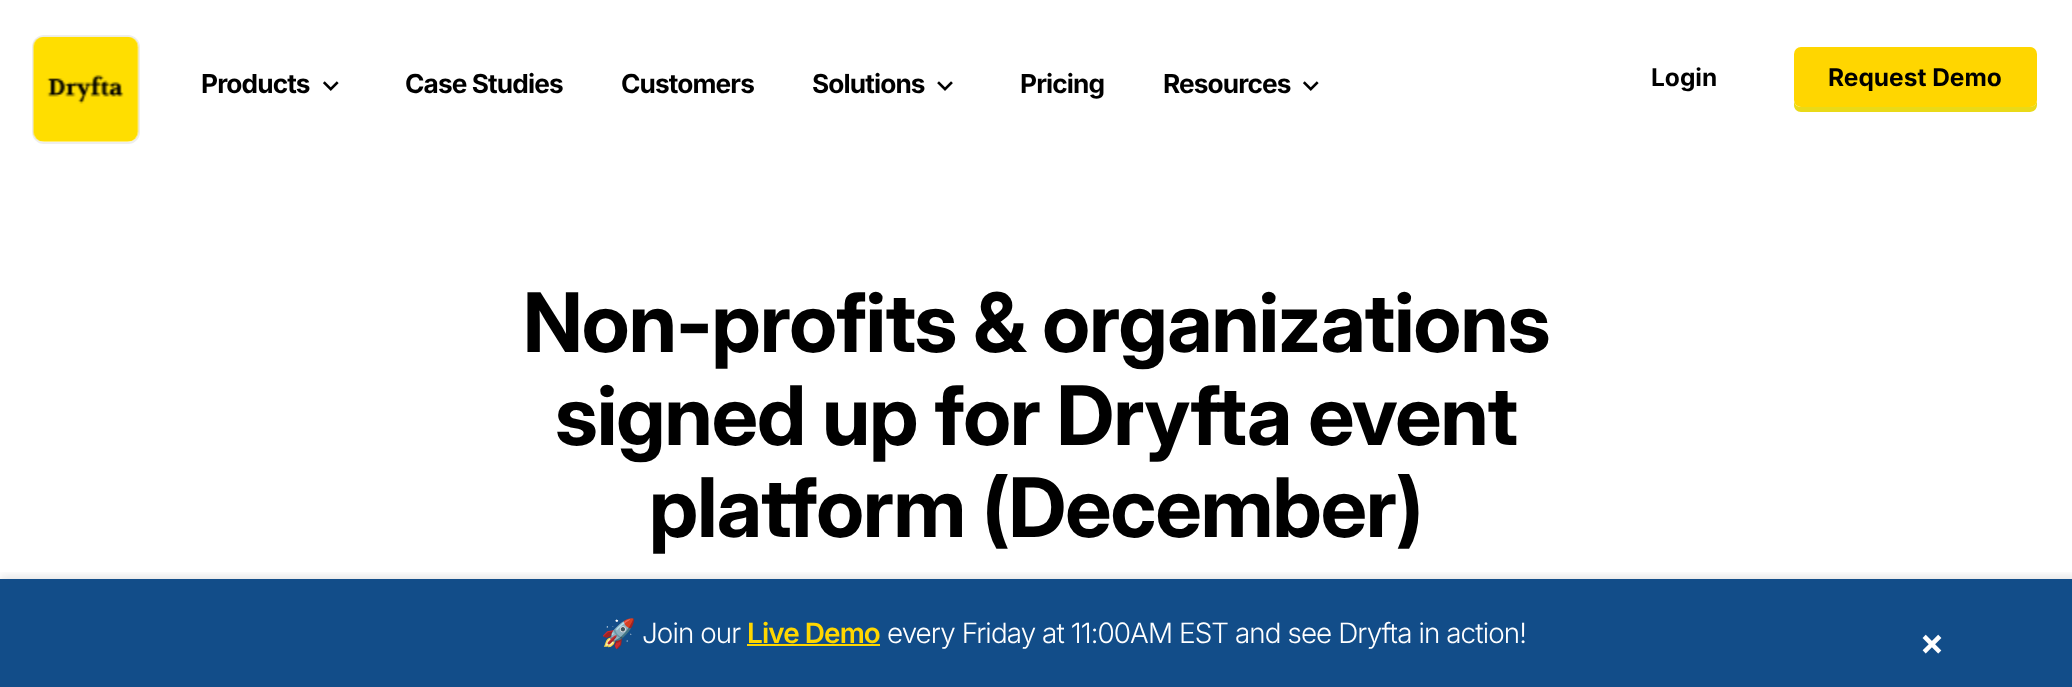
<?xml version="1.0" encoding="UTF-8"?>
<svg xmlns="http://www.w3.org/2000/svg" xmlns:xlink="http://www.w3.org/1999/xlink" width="2072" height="687">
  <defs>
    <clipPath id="clip1"><rect x="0" y="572" width="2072" height="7" /></clipPath>
  </defs>
  <rect width="100%" height="100%" fill="#ffffff" />
  <rect x="33" y="36" width="106" height="107" rx="11" fill="none" stroke="#eeeeee" stroke-width="2" />
  <image x="32" y="36" width="107" height="106" xlink:href="image1.png" />
  <image x="323" y="81" width="16" height="10" xlink:href="image2.png" />
  <image x="937" y="81" width="16" height="10" xlink:href="image3.png" />
  <image x="1303" y="81" width="16" height="10" xlink:href="image2.png" />
  <path d="M 1794 102 v 3 c 0 4 3 7 7 7 h 229 c 4 0 7 -3 7 -7 v -5 c 0 4 -3 7 -7 7 h -229 c -3 0 -6 -2 -7 -5 z" fill="#eada18" />
  <rect x="1794" y="47" width="243" height="60" rx="7" fill="#ffd600" />
  <g clip-path="url(#clip1)">
    <rect y="576" width="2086" height="108" fill="#000000" fill-opacity="0.1" filter="blur(4.5px)" />
  </g>
  <rect y="579" width="2072" height="108" fill="#004080" fill-opacity="0.93" />
  <rect x="747" y="644" width="133" height="2" fill="#ffd700" />
  <text x="201" y="93" style="font-family: 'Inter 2'; font-size: 26.25px; font-weight: bold; letter-spacing: -0.88px; fill: #000000">Products</text>
  <text x="405" y="93" style="font-family: 'Inter 2'; font-size: 26.25px; font-weight: bold; letter-spacing: -0.88px; fill: #000000">Case Studies</text>
  <text x="621" y="93" style="font-family: 'Inter 2'; font-size: 26.25px; font-weight: bold; letter-spacing: -0.88px; fill: #000000">Customers</text>
  <text x="812" y="93" style="font-family: 'Inter 2'; font-size: 26.25px; font-weight: bold; letter-spacing: -0.88px; fill: #000000">Solutions</text>
  <text x="1020" y="93" style="font-family: 'Inter 2'; font-size: 26.25px; font-weight: bold; letter-spacing: -0.88px; fill: #000000">Pricing</text>
  <text x="1163" y="93" style="font-family: 'Inter 2'; font-size: 26.25px; font-weight: bold; letter-spacing: -0.88px; fill: #000000">Resources</text>
  <text x="1651" y="86" style="font-family: 'Inter 2'; font-size: 24.5px; font-weight: bold; fill: #000000">Login</text>
  <text x="1828" y="86" style="font-family: 'Inter 2'; font-size: 24.5px; font-weight: bold; fill: #000000">Request Demo</text>
  <text x="523" y="352" style="font-family: Inter; font-size: 82.25px; font-weight: bold; letter-spacing: -0.88px; fill: #000000">Non-profits &amp; organizations</text>
  <text x="555" y="445" style="font-family: Inter; font-size: 82.25px; font-weight: bold; letter-spacing: -0.88px; fill: #000000">signed up for Dryfta event</text>
  <text x="649" y="537" style="font-family: Inter; font-size: 82.25px; font-weight: bold; letter-spacing: -0.88px; fill: #000000">platform (December)</text>
  <text x="601" y="643" style="font-family: Noto Color Emoji; font-size: 28px; letter-spacing: -0.88px; fill: #ffffff">🚀</text>
  <text x="642" y="643" style="font-family: Inter; font-size: 28px; font-weight: 300; letter-spacing: -0.88px; fill: #ffffff">Join our</text>
  <text x="747" y="643" style="font-family: Inter; font-size: 28px; font-weight: 600; letter-spacing: -0.88px; fill: #ffd700">Live Demo</text>
  <text x="887" y="643" style="font-family: Inter; font-size: 28px; font-weight: 300; letter-spacing: -0.88px; fill: #ffffff">every Friday at 11:00AM EST and see Dryfta in action!</text>
  <text x="1920" y="659" style="font-family: Noto Sans; font-size: 42px; font-weight: bold; fill: #ffffff">×</text>
</svg>
